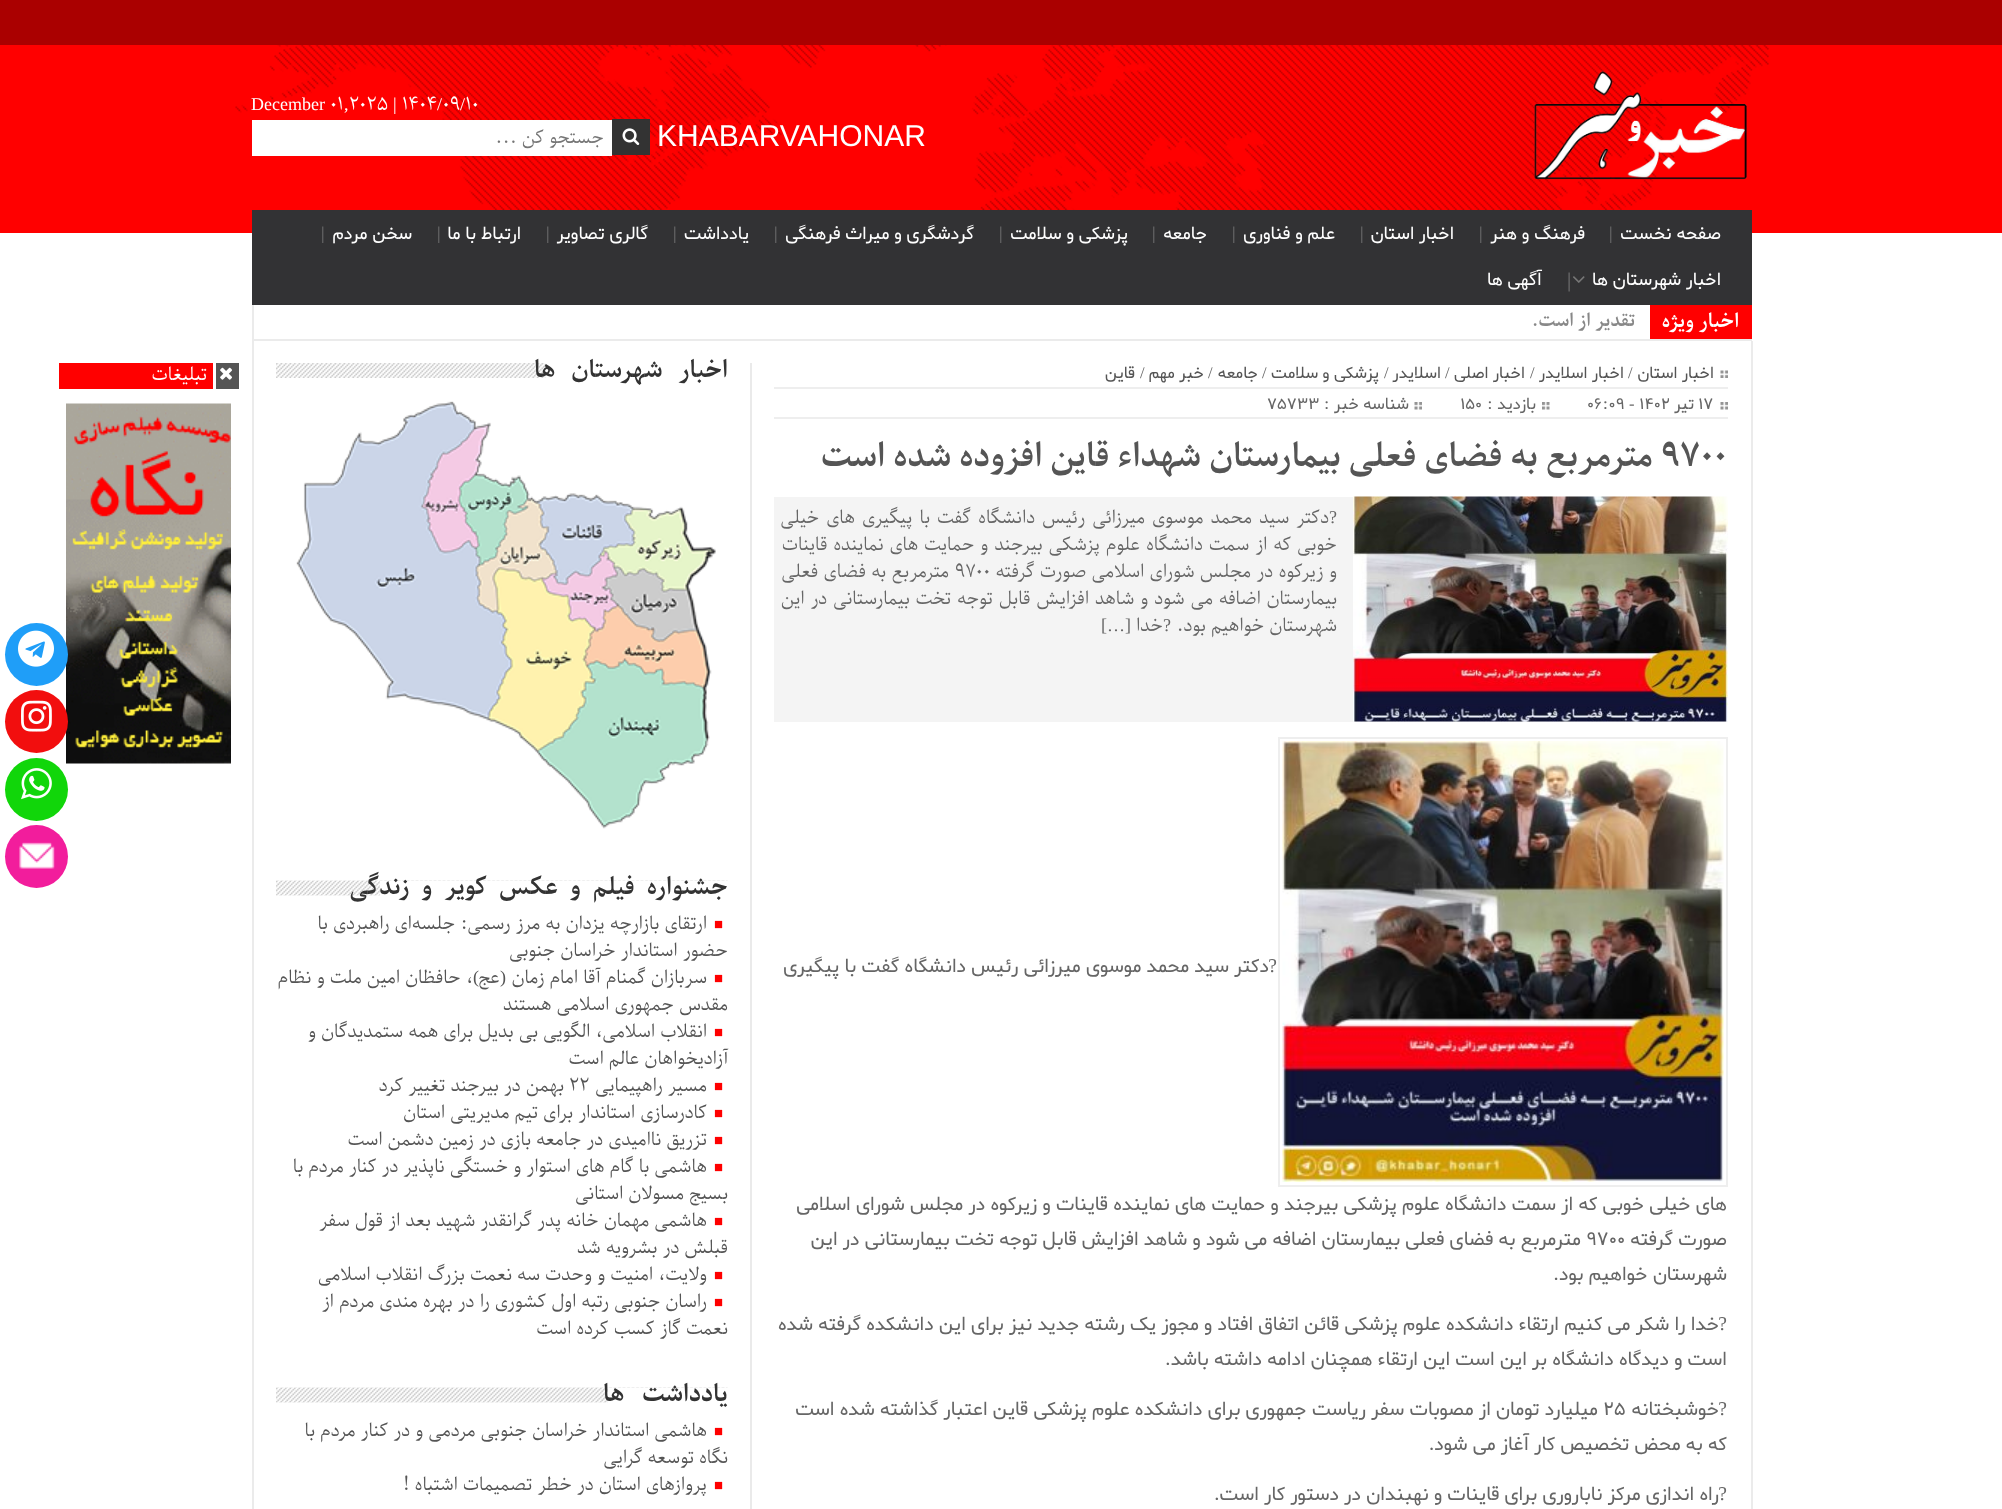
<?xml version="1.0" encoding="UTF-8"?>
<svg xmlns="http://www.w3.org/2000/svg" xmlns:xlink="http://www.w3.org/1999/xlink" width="2002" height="1509">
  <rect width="100%" height="100%" fill="#ffffff" />
  <rect y="45" width="2002" height="188" fill="#ff0000" />
  <image x="235" y="45" width="1534" height="165" xlink:href="image1.png" />
  <rect width="2002" height="45" fill="#aa0000" />
  <image x="1534" y="70" width="213" height="110" xlink:href="image2.png" />
  <rect x="612" y="119" width="38" height="36" fill="#333333" />
  <image x="622" y="128" width="18" height="17" xlink:href="image3.png" />
  <rect x="252" y="120" width="360" height="36" fill="#ffffff" />
  <rect x="252" y="339" width="1500" height="2" fill="#ebebeb" />
  <rect x="252" y="303" width="2" height="1206" fill="#ebebeb" />
  <rect x="252" y="210" width="1500" height="95" fill="#323234" />
  <image x="1573" y="276" width="12" height="7" xlink:href="image4.png" />
  <rect x="1650" y="305" width="102" height="34" fill="#ff0000" />
  <rect x="1751" y="341" width="2" height="1168" fill="#ebebeb" />
  <rect x="774" y="387" width="954" height="2" fill="#eeeeee" />
  <image x="1720" y="370" width="8" height="8" xlink:href="image5.png" />
  <rect x="774" y="417" width="954" height="2" fill="#eeeeee" />
  <image x="1720" y="402" width="8" height="8" xlink:href="image6.png" />
  <image x="1542" y="402" width="8" height="8" xlink:href="image7.png" />
  <image x="1414" y="402" width="8" height="8" xlink:href="image8.png" />
  <rect x="774" y="497" width="954" height="225" fill="#f4f4f4" />
  <image x="1353" y="496" width="375" height="226" xlink:href="image9.png" />
  <rect x="1279" y="738" width="448" height="448" fill="none" stroke="#eeeeee" stroke-width="2" />
  <image x="1282" y="741" width="442" height="441" xlink:href="image10.png" />
  <rect x="750" y="363" width="2" height="1146" fill="#eaeaea" />
  <image x="276" y="363" width="270" height="15" xlink:href="image11.png" />
  <image x="296" y="401" width="420" height="428" xlink:href="image12.png" />
  <image x="276" y="880" width="452" height="16" xlink:href="image13.png" />
  <rect x="380" y="881" width="348" height="15" fill="#ffffff" />
  <image x="276" y="1387" width="452" height="16" xlink:href="image13.png" />
  <rect x="608" y="1388" width="120" height="15" fill="#ffffff" />
  <rect x="59" y="363" width="154" height="26" fill="#ff0000" />
  <rect x="216" y="363" width="23" height="26" fill="#555555" />
  <image x="220" y="367" width="12" height="13" xlink:href="image14.png" />
  <image x="66" y="403" width="165" height="361" xlink:href="image15.png" />
  <circle cx="36.5" cy="654.5" r="31.5" fill="#1f9ef8" />
  <image x="18" y="630" width="36" height="37" xlink:href="image16.png" />
  <circle cx="36.5" cy="721.5" r="31.5" fill="#f20e0e" />
  <image x="21" y="700" width="31" height="32" xlink:href="image17.png" />
  <circle cx="36.5" cy="789.5" r="31.5" fill="#11d60a" />
  <image x="21" y="768" width="31" height="32" xlink:href="image18.png" />
  <circle cx="36.5" cy="856.5" r="31.5" fill="#f21d9c" />
  <image x="19" y="842" width="36" height="27" xlink:href="image19.png" />
  <text x="402" y="110" style="font-family: Parastoo; font-size: 18px; fill: #ffffff">۱۴۰۴ ۰۹ ۱۰</text>
  <text x="393" y="110" style="font-family: Liberation Serif; font-size: 18px; fill: #ffffff">|</text>
  <text x="349" y="110" style="font-family: Parastoo; font-size: 18px; fill: #ffffff">2025</text>
  <text x="330" y="110" style="font-family: Parastoo; font-size: 18px; fill: #ffffff">01</text>
  <text x="251" y="110" style="font-family: Liberation Serif; font-size: 18px; fill: #ffffff">December</text>
  <text x="460" y="110" style="font-family: Liberation Serif; font-size: 18px; fill: #ffffff">/</text>
  <text x="437" y="110" style="font-family: Liberation Serif; font-size: 18px; fill: #ffffff">/</text>
  <text x="344" y="110" style="font-family: Liberation Serif; font-size: 18px; fill: #ffffff">,</text>
  <text x="657" y="146" style="font-family: Liberation Sans; font-size: 30px; fill: #ffffff">KHABARVAHONAR</text>
  <text x="604" y="143" style="font-family: Parastoo; font-size: 18px; direction: rtl; fill: #757575">جستجو کن ...</text>
  <text x="1721" y="239" style="font-family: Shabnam; font-size: 18px; direction: rtl; fill: #ffffff">صفحه نخست</text>
  <text x="1609" y="239" style="font-family: Liberation Serif; font-size: 18px; fill: #757575">|</text>
  <text x="1585" y="239" style="font-family: Shabnam; font-size: 18px; direction: rtl; fill: #ffffff">فرهنگ و هنر</text>
  <text x="1479" y="239" style="font-family: Liberation Serif; font-size: 18px; fill: #757575">|</text>
  <text x="1454" y="239" style="font-family: Shabnam; font-size: 18px; direction: rtl; fill: #ffffff">اخبار استان</text>
  <text x="1360" y="239" style="font-family: Liberation Serif; font-size: 18px; fill: #757575">|</text>
  <text x="1335" y="239" style="font-family: Shabnam; font-size: 18px; direction: rtl; fill: #ffffff">علم و فناوری</text>
  <text x="1232" y="239" style="font-family: Liberation Serif; font-size: 18px; fill: #757575">|</text>
  <text x="1207" y="239" style="font-family: Shabnam; font-size: 18px; direction: rtl; fill: #ffffff">جامعه</text>
  <text x="1152" y="239" style="font-family: Liberation Serif; font-size: 18px; fill: #757575">|</text>
  <text x="1128" y="239" style="font-family: Shabnam; font-size: 18px; direction: rtl; fill: #ffffff">پزشکی و سلامت</text>
  <text x="999" y="239" style="font-family: Liberation Serif; font-size: 18px; fill: #757575">|</text>
  <text x="974" y="239" style="font-family: Shabnam; font-size: 18px; direction: rtl; fill: #ffffff">گردشگری و میراث فرهنگی</text>
  <text x="774" y="239" style="font-family: Liberation Serif; font-size: 18px; fill: #757575">|</text>
  <text x="749" y="239" style="font-family: Shabnam; font-size: 18px; direction: rtl; fill: #ffffff">یادداشت</text>
  <text x="673" y="239" style="font-family: Liberation Serif; font-size: 18px; fill: #757575">|</text>
  <text x="648" y="239" style="font-family: Shabnam; font-size: 18px; direction: rtl; fill: #ffffff">گالری تصاویر</text>
  <text x="546" y="239" style="font-family: Liberation Serif; font-size: 18px; fill: #757575">|</text>
  <text x="521" y="239" style="font-family: Shabnam; font-size: 18px; direction: rtl; fill: #ffffff">ارتباط با ما</text>
  <text x="437" y="239" style="font-family: Liberation Serif; font-size: 18px; fill: #757575">|</text>
  <text x="412" y="239" style="font-family: Shabnam; font-size: 18px; direction: rtl; fill: #ffffff">سخن مردم</text>
  <text x="321" y="239" style="font-family: Liberation Serif; font-size: 18px; fill: #757575">|</text>
  <text x="1721" y="285" style="font-family: Shabnam; font-size: 18px; direction: rtl; fill: #ffffff">اخبار شهرستان ها</text>
  <text x="1567" y="287" style="font-family: Liberation Serif; font-size: 21px; fill: #757575">|</text>
  <text x="1542" y="285" style="font-family: Shabnam; font-size: 18px; direction: rtl; fill: #ffffff">آگهی ها</text>
  <text x="1739" y="327" style="font-family: Parastoo; font-size: 19.5px; font-weight: bold; direction: rtl; fill: #ffffff">اخبار ویژه</text>
  <text x="1635" y="326" style="font-family: Parastoo; font-size: 18px; font-weight: bold; direction: rtl; fill: #888888">تقدیر از است.</text>
  <text x="1714" y="378" style="font-family: Shabnam; font-size: 16.5px; direction: rtl; fill: #555555">اخبار استان</text>
  <text x="1628" y="378" style="font-family: Liberation Serif; font-size: 16.5px; fill: #666666">/</text>
  <text x="1624" y="378" style="font-family: Shabnam; font-size: 16.5px; direction: rtl; fill: #555555">اخبار اسلایدر</text>
  <text x="1530" y="378" style="font-family: Liberation Serif; font-size: 16.5px; fill: #666666">/</text>
  <text x="1525" y="378" style="font-family: Shabnam; font-size: 16.5px; direction: rtl; fill: #555555">اخبار اصلی</text>
  <text x="1445" y="378" style="font-family: Liberation Serif; font-size: 16.5px; fill: #666666">/</text>
  <text x="1441" y="378" style="font-family: Shabnam; font-size: 16.5px; direction: rtl; fill: #555555">اسلایدر</text>
  <text x="1384" y="378" style="font-family: Liberation Serif; font-size: 16.5px; fill: #666666">/</text>
  <text x="1379" y="378" style="font-family: Shabnam; font-size: 16.5px; direction: rtl; fill: #555555">پزشکی و سلامت</text>
  <text x="1262" y="378" style="font-family: Liberation Serif; font-size: 16.5px; fill: #666666">/</text>
  <text x="1258" y="378" style="font-family: Shabnam; font-size: 16.5px; direction: rtl; fill: #555555">جامعه</text>
  <text x="1208" y="378" style="font-family: Liberation Serif; font-size: 16.5px; fill: #666666">/</text>
  <text x="1204" y="378" style="font-family: Shabnam; font-size: 16.5px; direction: rtl; fill: #555555">خبر مهم</text>
  <text x="1140" y="378" style="font-family: Liberation Serif; font-size: 16.5px; fill: #666666">/</text>
  <text x="1135" y="378" style="font-family: Shabnam; font-size: 16.5px; direction: rtl; fill: #555555">قاین</text>
  <text x="1698" y="409" style="font-family: Shabnam; font-size: 16.5px; fill: #666666">۱۷</text>
  <text x="1694" y="409" style="font-family: Shabnam; font-size: 16.5px; direction: rtl; fill: #666666">تیر</text>
  <text x="1639" y="409" style="font-family: Shabnam; font-size: 16.5px; fill: #666666">۱۴۰۲</text>
  <text x="1629" y="409" style="font-family: Liberation Serif; font-size: 16.5px; fill: #666666">-</text>
  <text x="1587" y="409" style="font-family: Shabnam; font-size: 16.5px; fill: #666666">۰۶:۰۹</text>
  <text x="1536" y="409" style="font-family: Shabnam; font-size: 16.5px; direction: rtl; fill: #666666">بازدید :</text>
  <text x="1460" y="409" style="font-family: Shabnam; font-size: 16.5px; fill: #666666">150</text>
  <text x="1409" y="409" style="font-family: Shabnam; font-size: 16.5px; direction: rtl; fill: #666666">شناسه خبر :</text>
  <text x="1267" y="409" style="font-family: Shabnam; font-size: 16.5px; fill: #666666">75733</text>
  <text x="1661" y="466" style="font-family: Parastoo; font-size: 33px; font-weight: bold; fill: #555555">۹۷۰۰</text>
  <text x="1653" y="466" style="font-family: Parastoo; font-size: 33px; font-weight: bold; direction: rtl; fill: #555555">مترمربع به فضای فعلی بیمارستان شهداء قاین افزوده شده است</text>
  <text x="1337" y="523" style="font-family: Liberation Serif; font-size: 18px; direction: rtl; fill: #666666">?</text>
  <text x="1329" y="523" word-spacing="2" style="font-family: Parastoo; font-size: 18px; direction: rtl; fill: #666666">دکتر سید محمد موسوی میرزائی رئیس دانشگاه گفت با پیگیری های خیلی</text>
  <text x="1337" y="550" word-spacing="0.8" style="font-family: Parastoo; font-size: 18px; direction: rtl; fill: #666666">خوبی که از سمت دانشگاه علوم پزشکی بیرجند و حمایت های نماینده قاینات</text>
  <text x="1337" y="577" word-spacing="0.25" style="font-family: Parastoo; font-size: 18px; direction: rtl; fill: #666666">و زیرکوه در مجلس شورای اسلامی صورت گرفته</text>
  <text x="955" y="577" style="font-family: Parastoo; font-size: 18px; fill: #666666">۹۷۰۰</text>
  <text x="949" y="577" word-spacing="0.25" style="font-family: Parastoo; font-size: 18px; direction: rtl; fill: #666666">مترمربع به فضای فعلی</text>
  <text x="1337" y="604" word-spacing="0.75" style="font-family: Parastoo; font-size: 18px; direction: rtl; fill: #666666">بیمارستان اضافه می شود و شاهد افزایش قابل توجه تخت بیمارستانی در این</text>
  <text x="1337" y="631" style="font-family: Parastoo; font-size: 18px; direction: rtl; fill: #666666">شهرستان خواهیم بود.</text>
  <text x="1171" y="631" style="font-family: Liberation Serif; font-size: 18px; direction: rtl; fill: #666666">?</text>
  <text x="1163" y="631" style="font-family: Parastoo; font-size: 18px; direction: rtl; fill: #666666">خدا</text>
  <text x="1131" y="631" style="font-family: Liberation Serif; font-size: 18px; direction: rtl; fill: #666666">[…]</text>
  <text x="1277" y="972" style="font-family: Liberation Serif; font-size: 19.5px; direction: rtl; fill: #666666">?</text>
  <text x="1269" y="972" style="font-family: Shabnam; font-size: 19.5px; direction: rtl; fill: #666666">دکتر سید محمد موسوی میرزائی رئیس دانشگاه گفت با پیگیری</text>
  <text x="1727" y="1210" style="font-family: Shabnam; font-size: 19.5px; direction: rtl; fill: #666666">های خیلی خوبی که از سمت دانشگاه علوم پزشکی بیرجند و حمایت های نماینده قاینات و زیرکوه در مجلس شورای اسلامی</text>
  <text x="1727" y="1245" style="font-family: Shabnam; font-size: 19.5px; direction: rtl; fill: #666666">صورت گرفته</text>
  <text x="1586" y="1245" style="font-family: Shabnam; font-size: 19.5px; fill: #666666">۹۷۰۰</text>
  <text x="1581" y="1245" style="font-family: Shabnam; font-size: 19.5px; direction: rtl; fill: #666666">مترمربع به فضای فعلی بیمارستان اضافه می شود و شاهد افزایش قابل توجه تخت بیمارستانی در این</text>
  <text x="1727" y="1280" style="font-family: Shabnam; font-size: 19.5px; direction: rtl; fill: #666666">شهرستان خواهیم بود.</text>
  <text x="1727" y="1330" style="font-family: Liberation Serif; font-size: 19.5px; direction: rtl; fill: #666666">?</text>
  <text x="1719" y="1330" style="font-family: Shabnam; font-size: 19.5px; direction: rtl; fill: #666666">خدا را شکر می کنیم ارتقاء دانشکده علوم پزشکی قائن اتفاق افتاد و مجوز یک رشته جدید نیز برای این دانشکده گرفته شده</text>
  <text x="1727" y="1365" style="font-family: Shabnam; font-size: 19.5px; direction: rtl; fill: #666666">است و دیدگاه دانشگاه بر این است این ارتقاء همچنان ادامه داشته باشد.</text>
  <text x="1727" y="1415" style="font-family: Liberation Serif; font-size: 19.5px; direction: rtl; fill: #666666">?</text>
  <text x="1719" y="1415" style="font-family: Shabnam; font-size: 19.5px; direction: rtl; fill: #666666">خوشبختانه</text>
  <text x="1603" y="1415" style="font-family: Shabnam; font-size: 19.5px; fill: #666666">۲۵</text>
  <text x="1598" y="1415" style="font-family: Shabnam; font-size: 19.5px; direction: rtl; fill: #666666">میلیارد تومان از مصوبات سفر ریاست جمهوری برای دانشکده علوم پزشکی قاین اعتبار گذاشته شده است</text>
  <text x="1727" y="1450" style="font-family: Shabnam; font-size: 19.5px; direction: rtl; fill: #666666">که به محض تخصیص کار آغاز می شود.</text>
  <text x="1727" y="1500" style="font-family: Liberation Serif; font-size: 19.5px; direction: rtl; fill: #666666">?</text>
  <text x="1719" y="1500" style="font-family: Shabnam; font-size: 19.5px; direction: rtl; fill: #666666">راه اندازی مرکز ناباروری برای قاینات و نهبندان در دستور کار است.</text>
  <text x="728" y="377" word-spacing="10" style="font-family: Parastoo; font-size: 24px; font-weight: bold; letter-spacing: -1.2px; direction: rtl; fill: #333333">اخبار شهرستان ها</text>
  <text x="728" y="894" word-spacing="6.25" style="font-family: Parastoo; font-size: 24px; font-weight: bold; letter-spacing: -1.2px; direction: rtl; fill: #333333">جشنواره فیلم و عکس کویر و زندگی</text>
  <text x="714" y="929" style="font-family: Liberation Serif; font-size: 15px; fill: #ff0000">■</text>
  <text x="707" y="929" style="font-family: Parastoo; font-size: 18px; direction: rtl; fill: #555555">ارتقای بازارچه یزدان به مرز رسمی: جلسه‌ای راهبردی با</text>
  <text x="728" y="956" style="font-family: Parastoo; font-size: 18px; direction: rtl; fill: #555555">حضور استاندار خراسان جنوبی</text>
  <text x="714" y="983" style="font-family: Liberation Serif; font-size: 15px; fill: #ff0000">■</text>
  <text x="707" y="983" style="font-family: Parastoo; font-size: 18px; direction: rtl; fill: #555555">سربازان گمنام آقا امام زمان</text>
  <text x="506" y="983" style="font-family: Liberation Serif; font-size: 18px; direction: rtl; fill: #555555">(</text>
  <text x="500" y="983" style="font-family: Parastoo; font-size: 18px; direction: rtl; fill: #555555">عج</text>
  <text x="479" y="983" style="font-family: Liberation Serif; font-size: 18px; direction: rtl; fill: #555555">)</text>
  <text x="473" y="983" style="font-family: Parastoo; font-size: 18px; direction: rtl; fill: #555555">، حافظان امین ملت و نظام</text>
  <text x="728" y="1010" style="font-family: Parastoo; font-size: 18px; direction: rtl; fill: #555555">مقدس جمهوری اسلامی هستند</text>
  <text x="714" y="1037" style="font-family: Liberation Serif; font-size: 15px; fill: #ff0000">■</text>
  <text x="707" y="1037" style="font-family: Parastoo; font-size: 18px; direction: rtl; fill: #555555">انقلاب اسلامی، الگویی بی بدیل برای همه ستمدیدگان و</text>
  <text x="728" y="1064" style="font-family: Parastoo; font-size: 18px; direction: rtl; fill: #555555">آزادیخواهان عالم است</text>
  <text x="714" y="1091" style="font-family: Liberation Serif; font-size: 15px; fill: #ff0000">■</text>
  <text x="707" y="1091" style="font-family: Parastoo; font-size: 18px; direction: rtl; fill: #555555">مسیر راهپیمایی</text>
  <text x="569" y="1091" style="font-family: Parastoo; font-size: 18px; fill: #555555">۲۲</text>
  <text x="564" y="1091" style="font-family: Parastoo; font-size: 18px; direction: rtl; fill: #555555">بهمن در بیرجند تغییر کرد</text>
  <text x="714" y="1118" style="font-family: Liberation Serif; font-size: 15px; fill: #ff0000">■</text>
  <text x="707" y="1118" style="font-family: Parastoo; font-size: 18px; direction: rtl; fill: #555555">کادرسازی استاندار برای تیم مدیریتی استان</text>
  <text x="714" y="1145" style="font-family: Liberation Serif; font-size: 15px; fill: #ff0000">■</text>
  <text x="707" y="1145" style="font-family: Parastoo; font-size: 18px; direction: rtl; fill: #555555">تزریق ناامیدی در جامعه بازی در زمین دشمن است</text>
  <text x="714" y="1172" style="font-family: Liberation Serif; font-size: 15px; fill: #ff0000">■</text>
  <text x="707" y="1172" style="font-family: Parastoo; font-size: 18px; direction: rtl; fill: #555555">هاشمی با گام های استوار و خستگی ناپذیر در کنار مردم با</text>
  <text x="728" y="1199" style="font-family: Parastoo; font-size: 18px; direction: rtl; fill: #555555">بسیج</text>
  <text x="684" y="1199" style="font-family: Parastoo; font-size: 18px; direction: rtl; fill: #555555">مسولان استانی</text>
  <text x="714" y="1226" style="font-family: Liberation Serif; font-size: 15px; fill: #ff0000">■</text>
  <text x="707" y="1226" style="font-family: Parastoo; font-size: 18px; direction: rtl; fill: #555555">هاشمی مهمان خانه پدر گرانقدر شهید بعد از قول سفر</text>
  <text x="728" y="1253" style="font-family: Parastoo; font-size: 18px; direction: rtl; fill: #555555">قبلش در بشرویه شد</text>
  <text x="714" y="1280" style="font-family: Liberation Serif; font-size: 15px; fill: #ff0000">■</text>
  <text x="707" y="1280" style="font-family: Parastoo; font-size: 18px; direction: rtl; fill: #555555">ولایت، امنیت و وحدت سه</text>
  <text x="512" y="1280" style="font-family: Parastoo; font-size: 18px; direction: rtl; fill: #555555">نعمت بزرگ انقلاب اسلامی</text>
  <text x="714" y="1307" style="font-family: Liberation Serif; font-size: 15px; fill: #ff0000">■</text>
  <text x="707" y="1307" style="font-family: Parastoo; font-size: 18px; direction: rtl; fill: #555555">راسان جنوبی رتبه اول کشوری را در بهره مندی مردم از</text>
  <text x="728" y="1334" style="font-family: Parastoo; font-size: 18px; direction: rtl; fill: #555555">نعمت گاز کسب کرده است</text>
  <text x="728" y="1401" word-spacing="12" style="font-family: Parastoo; font-size: 24px; font-weight: bold; letter-spacing: -1.2px; direction: rtl; fill: #333333">یادداشت ها</text>
  <text x="714" y="1436" style="font-family: Liberation Serif; font-size: 15px; fill: #ff0000">■</text>
  <text x="707" y="1436" style="font-family: Parastoo; font-size: 18px; direction: rtl; fill: #555555">هاشمی استاندار خراسان جنوبی مردمی و در کنار مردم با</text>
  <text x="728" y="1463" style="font-family: Parastoo; font-size: 18px; direction: rtl; fill: #555555">نگاه توسعه گرایی</text>
  <text x="714" y="1490" style="font-family: Liberation Serif; font-size: 15px; fill: #ff0000">■</text>
  <text x="707" y="1490" style="font-family: Parastoo; font-size: 18px; direction: rtl; fill: #555555">پروازهای استان در خطر تصمیمات اشتباه !</text>
  <text x="207" y="380" style="font-family: Parastoo; font-size: 18px; direction: rtl; fill: #ffffff">تبلیغات</text>
</svg>
